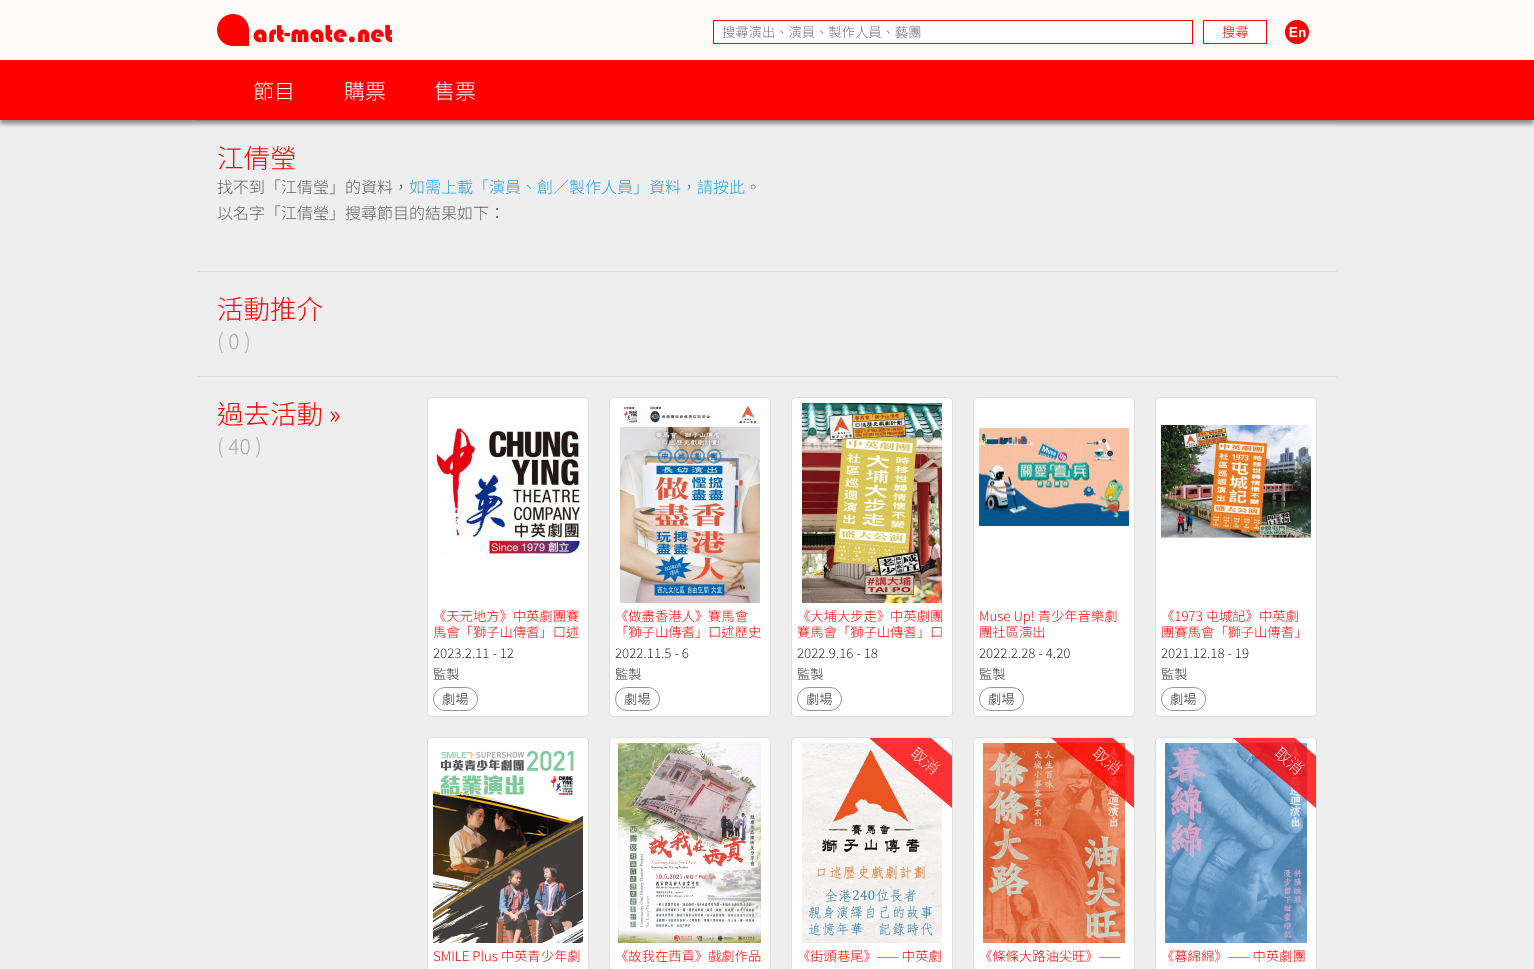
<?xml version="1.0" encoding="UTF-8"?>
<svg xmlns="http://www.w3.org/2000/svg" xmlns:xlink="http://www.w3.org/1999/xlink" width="1534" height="969">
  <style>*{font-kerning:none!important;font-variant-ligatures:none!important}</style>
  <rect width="100%" height="100%" fill="#eeeeee" />
  <rect width="1534" height="60" fill="#fffafa" />
  <image x="217" y="14" width="175" height="32" xlink:href="image1.png" />
  <rect x="713.5" y="20.5" width="479" height="23" fill="#ffffff" stroke="#ff0000" />
  <rect x="1203.5" y="20.5" width="63" height="23" fill="#ffffff" stroke="#ff0000" />
  <image x="1285" y="20" width="24" height="24" xlink:href="image2.png" />
  <rect x="197" y="120" width="1140" height="1" fill="#dddddd" />
  <rect y="64" width="1534" height="60" fill="#000000" fill-opacity="0.4" filter="blur(2px)" />
  <rect y="60" width="1534" height="60" fill="#ff0000" />
  <rect x="197" y="271" width="1140" height="1" fill="#dddddd" />
  <rect x="197" y="376" width="1140" height="1" fill="#dddddd" />
  <rect x="427.5" y="397.5" width="161" height="319" rx="4.5" fill="#ffffff" stroke="#dfdfdf" />
  <image x="433" y="425" width="150" height="134" xlink:href="image3.png" />
  <rect x="433.5" y="687.5" width="44" height="23" rx="11.5" fill="none" stroke="#959595" />
  <rect x="609.5" y="397.5" width="161" height="319" rx="4.5" fill="#ffffff" stroke="#dfdfdf" />
  <image x="620" y="405" width="140" height="198" xlink:href="image4.png" />
  <rect x="615.5" y="687.5" width="44" height="23" rx="11.5" fill="none" stroke="#959595" />
  <rect x="791.5" y="397.5" width="161" height="319" rx="4.5" fill="#ffffff" stroke="#dfdfdf" />
  <image x="802" y="403" width="140" height="200" xlink:href="image5.png" />
  <rect x="797.5" y="687.5" width="44" height="23" rx="11.5" fill="none" stroke="#959595" />
  <rect x="973.5" y="397.5" width="161" height="319" rx="4.5" fill="#ffffff" stroke="#dfdfdf" />
  <image x="979" y="428" width="150" height="98" xlink:href="image6.png" />
  <rect x="979.5" y="687.5" width="44" height="23" rx="11.5" fill="none" stroke="#959595" />
  <rect x="1155.5" y="397.5" width="161" height="319" rx="4.5" fill="#ffffff" stroke="#dfdfdf" />
  <image x="1161" y="425" width="150" height="113" xlink:href="image7.png" />
  <rect x="1161.5" y="687.5" width="44" height="23" rx="11.5" fill="none" stroke="#959595" />
  <rect x="427.5" y="737.5" width="161" height="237" rx="4.5" fill="#ffffff" stroke="#dfdfdf" />
  <image x="433" y="750" width="150" height="193" xlink:href="image8.png" />
  <rect x="609.5" y="737.5" width="161" height="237" rx="4.5" fill="#ffffff" stroke="#dfdfdf" />
  <image x="618" y="743" width="143" height="200" xlink:href="image9.png" />
  <rect x="791.5" y="737.5" width="161" height="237" rx="4.5" fill="#ffffff" stroke="#dfdfdf" />
  <image x="802" y="743" width="140" height="200" xlink:href="image10.png" />
  <path d="M 952 808 l -83 -70 h 62 l 21 18 z" fill="#ff0000" fill-opacity="0.8" />
  <rect x="973.5" y="737.5" width="161" height="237" rx="4.5" fill="#ffffff" stroke="#dfdfdf" />
  <image x="983" y="743" width="142" height="200" xlink:href="image11.png" />
  <path d="M 1134 808 l -83 -70 h 62 l 21 18 z" fill="#ff0000" fill-opacity="0.8" />
  <rect x="1155.5" y="737.5" width="161" height="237" rx="4.5" fill="#ffffff" stroke="#dfdfdf" />
  <image x="1165" y="743" width="142" height="200" xlink:href="image12.png" />
  <path d="M 1316 808 l -83 -70 h 62 l 21 18 z" fill="#ff0000" fill-opacity="0.8" />
  <text x="722" y="37" style="font-family: Noto Sans HK; font-size: 13.3px; font-weight: 100; fill: #757575">搜尋演出、演員、製作人員、藝團</text>
  <text x="1222" y="37" style="font-family: Noto Sans HK; font-size: 13.3px; font-weight: 100; fill: #ff0000">搜尋</text>
  <text x="253" y="99" style="font-family: Noto Sans HK; font-size: 21px; font-weight: 100; fill: #ffffff">節目</text>
  <text x="344" y="99" style="font-family: Noto Sans HK; font-size: 21px; font-weight: 100; fill: #ffffff">購票</text>
  <text x="434" y="99" style="font-family: Noto Sans HK; font-size: 21px; font-weight: 100; fill: #ffffff">售票</text>
  <text x="217" y="168" style="font-family: Noto Sans HK; font-size: 26.5px; font-weight: 100; fill: #ff0000">江倩瑩</text>
  <text x="217" y="193" style="font-family: Noto Sans HK; font-size: 16px; font-weight: 100; fill: #636363">找不到「江倩瑩」的資料，</text>
  <text x="409" y="193" style="font-family: Noto Sans HK; font-size: 16px; font-weight: 100; fill: #32a0dc">如需上載「演員、創／製作人員」資料，請按此</text>
  <text x="745" y="193" style="font-family: Noto Sans HK; font-size: 16px; font-weight: 100; fill: #636363">。</text>
  <text x="217" y="219" style="font-family: Noto Sans HK; font-size: 16px; font-weight: 100; fill: #636363">以名字「江倩瑩」搜尋節目的結果如下：</text>
  <text x="217" y="319" style="font-family: Noto Sans HK; font-size: 26.5px; font-weight: 100; fill: #ff0000">活動推介</text>
  <text x="217" y="349" style="font-family: Noto Sans HK; font-size: 21px; font-weight: 100; fill: #aaaaaa">( 0 )</text>
  <text x="217" y="424" style="font-family: Noto Sans HK; font-size: 26.5px; font-weight: 100; fill: #ff0000">過去活動 »</text>
  <text x="217" y="454" style="font-family: Noto Sans HK; font-size: 21px; font-weight: 100; fill: #aaaaaa">( 40 )</text>
  <text x="433" y="621" style="font-family: Noto Sans HK; font-size: 13.3px; font-weight: 100; fill: #ff0000">《天元地方》中英劇團賽</text>
  <text x="433" y="637" style="font-family: Noto Sans HK; font-size: 13.3px; font-weight: 100; fill: #ff0000">馬會「獅子山傳耆」口述</text>
  <text x="433" y="658" style="font-family: Noto Sans HK; font-size: 13.3px; font-weight: 100; fill: #333333">2023.2.11 - 12</text>
  <text x="433" y="679" style="font-family: Noto Sans HK; font-size: 13.3px; font-weight: 100; fill: #333333">監製</text>
  <text x="442" y="704" style="font-family: Noto Sans HK; font-size: 13.3px; font-weight: 100; fill: #333333">劇場</text>
  <text x="615" y="621" style="font-family: Noto Sans HK; font-size: 13.3px; font-weight: 100; fill: #ff0000">《做盡香港人》賽馬會</text>
  <text x="615" y="637" style="font-family: Noto Sans HK; font-size: 13.3px; font-weight: 100; fill: #ff0000">「獅子山傳耆」口述歷史</text>
  <text x="615" y="658" style="font-family: Noto Sans HK; font-size: 13.3px; font-weight: 100; fill: #333333">2022.11.5 - 6</text>
  <text x="615" y="679" style="font-family: Noto Sans HK; font-size: 13.3px; font-weight: 100; fill: #333333">監製</text>
  <text x="624" y="704" style="font-family: Noto Sans HK; font-size: 13.3px; font-weight: 100; fill: #333333">劇場</text>
  <text x="797" y="621" style="font-family: Noto Sans HK; font-size: 13.3px; font-weight: 100; fill: #ff0000">《大埔大步走》中英劇團</text>
  <text x="797" y="637" style="font-family: Noto Sans HK; font-size: 13.3px; font-weight: 100; fill: #ff0000">賽馬會「獅子山傳耆」口</text>
  <text x="797" y="658" style="font-family: Noto Sans HK; font-size: 13.3px; font-weight: 100; fill: #333333">2022.9.16 - 18</text>
  <text x="797" y="679" style="font-family: Noto Sans HK; font-size: 13.3px; font-weight: 100; fill: #333333">監製</text>
  <text x="806" y="704" style="font-family: Noto Sans HK; font-size: 13.3px; font-weight: 100; fill: #333333">劇場</text>
  <text x="979" y="621" style="font-family: Noto Sans HK; font-size: 13.3px; font-weight: 100; fill: #ff0000">Muse Up! 青少年音樂劇</text>
  <text x="979" y="637" style="font-family: Noto Sans HK; font-size: 13.3px; font-weight: 100; fill: #ff0000">團社區演出</text>
  <text x="979" y="658" style="font-family: Noto Sans HK; font-size: 13.3px; font-weight: 100; fill: #333333">2022.2.28 - 4.20</text>
  <text x="979" y="679" style="font-family: Noto Sans HK; font-size: 13.3px; font-weight: 100; fill: #333333">監製</text>
  <text x="988" y="704" style="font-family: Noto Sans HK; font-size: 13.3px; font-weight: 100; fill: #333333">劇場</text>
  <text x="1161" y="621" style="font-family: Noto Sans HK; font-size: 13.3px; font-weight: 100; fill: #ff0000">《1973 屯城記》中英劇</text>
  <text x="1161" y="637" style="font-family: Noto Sans HK; font-size: 13.3px; font-weight: 100; fill: #ff0000">團賽馬會「獅子山傳耆」</text>
  <text x="1161" y="658" style="font-family: Noto Sans HK; font-size: 13.3px; font-weight: 100; fill: #333333">2021.12.18 - 19</text>
  <text x="1161" y="679" style="font-family: Noto Sans HK; font-size: 13.3px; font-weight: 100; fill: #333333">監製</text>
  <text x="1170" y="704" style="font-family: Noto Sans HK; font-size: 13.3px; font-weight: 100; fill: #333333">劇場</text>
  <text x="433" y="961" style="font-family: Noto Sans HK; font-size: 13.3px; font-weight: 100; fill: #ff0000">SMILE Plus 中英青少年劇</text>
  <text x="615" y="961" style="font-family: Noto Sans HK; font-size: 13.3px; font-weight: 100; fill: #ff0000">《故我在西貢》戲劇作品</text>
  <text x="909" y="755" transform="rotate(40 909 755)" style="font-family: Noto Sans HK; font-size: 16px; font-weight: 100; fill: #fed6d6">取消</text>
  <text x="797" y="961" style="font-family: Noto Sans HK; font-size: 13.3px; font-weight: 100; fill: #ff0000">《街頭巷尾》—— 中英劇</text>
  <text x="1091" y="755" transform="rotate(40 1091 755)" style="font-family: Noto Sans HK; font-size: 16px; font-weight: 100; fill: #fed2d0">取消</text>
  <text x="979" y="961" style="font-family: Noto Sans HK; font-size: 13.3px; font-weight: 100; fill: #ff0000">《條條大路油尖旺》——</text>
  <text x="1273" y="755" transform="rotate(40 1273 755)" style="font-family: Noto Sans HK; font-size: 16px; font-weight: 100; fill: #fed6d6">取消</text>
  <text x="1161" y="961" style="font-family: Noto Sans HK; font-size: 13.3px; font-weight: 100; fill: #ff0000">《暮綿綿》—— 中英劇團</text>
</svg>
